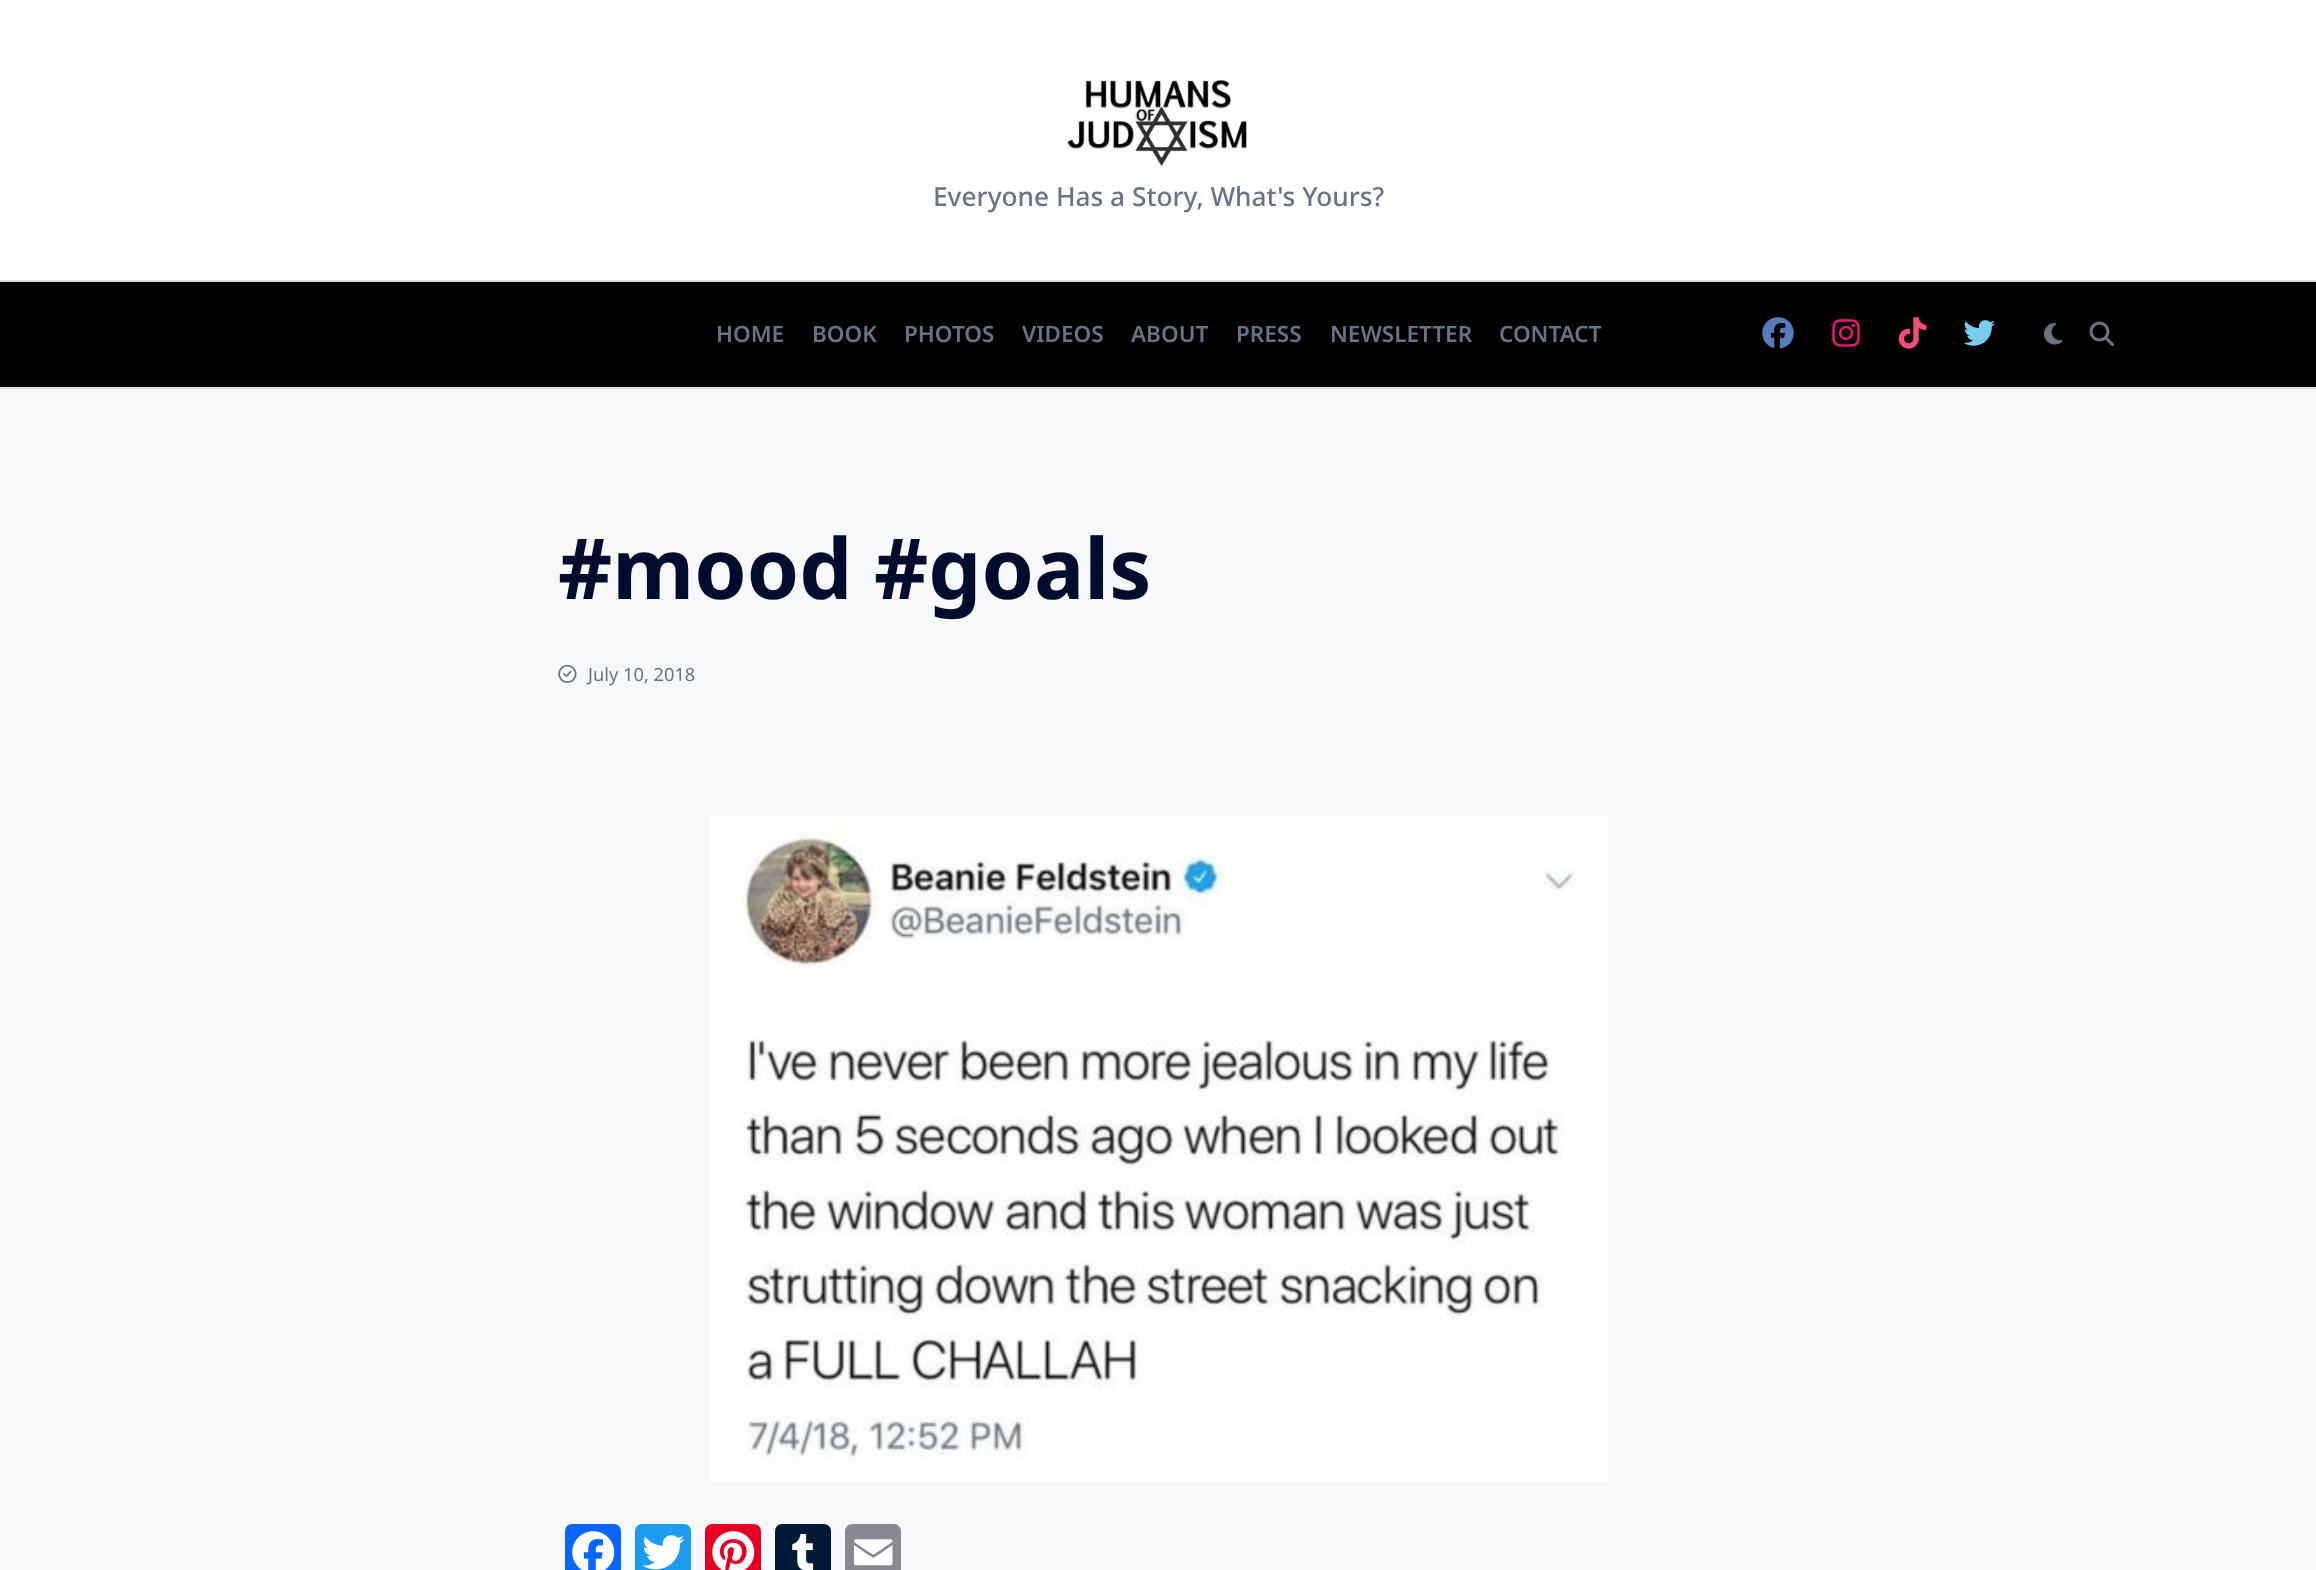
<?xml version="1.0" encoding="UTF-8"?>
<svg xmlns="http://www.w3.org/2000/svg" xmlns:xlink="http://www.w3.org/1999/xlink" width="2316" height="1570">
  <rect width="100%" height="100%" fill="#f7f8f9" />
  <rect width="2316" height="280" fill="#ffffff" />
  <image x="1067" y="79" width="180" height="87" xlink:href="image1.png" />
  <rect y="282" width="2316" height="105" fill="#000000" />
  <rect y="280" width="2316" height="2" fill="#dbdddf" />
  <rect y="387" width="2316" height="2" fill="#dbdddf" />
  <image x="1762" y="317" width="32" height="32" xlink:href="image2.png" />
  <image x="1832" y="319" width="28" height="28" xlink:href="image3.png" />
  <image x="1898" y="317" width="29" height="32" xlink:href="image4.png" />
  <image x="1963" y="320" width="32" height="26" xlink:href="image5.png" />
  <image x="2044" y="323" width="19" height="22" xlink:href="image6.png" />
  <image x="2089" y="321" width="25" height="25" xlink:href="image7.png" />
  <image x="558" y="664" width="19" height="19" xlink:href="image8.png" />
  <image x="709" y="815" width="899" height="667" xlink:href="image9.png" />
  <rect x="565" y="1524" width="56" height="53" rx="7" fill="#0866ff" />
  <image x="572" y="1531" width="43" height="39" xlink:href="image10.png" />
  <rect x="635" y="1524" width="56" height="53" rx="7" fill="#1d9bf0" />
  <image x="642" y="1535" width="43" height="35" xlink:href="image11.png" />
  <rect x="705" y="1524" width="56" height="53" rx="7" fill="#e60023" />
  <image x="712" y="1531" width="43" height="39" xlink:href="image12.png" />
  <rect x="775" y="1524" width="56" height="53" rx="7" fill="#001935" />
  <image x="792" y="1534" width="22" height="36" xlink:href="image13.png" />
  <rect x="845" y="1524" width="56" height="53" rx="7" fill="#888990" />
  <image x="854" y="1539" width="39" height="27" xlink:href="image14.png" />
  <text x="933" y="206" style="font-family: Noto Sans; font-size: 26.25px; font-weight: 500; fill: #687385">Everyone Has a Story, What's Yours?</text>
  <text x="716" y="342" style="font-family: Noto Sans; font-size: 22.5px; font-weight: 600; fill: #687385">HOME</text>
  <text x="812" y="342" style="font-family: Noto Sans; font-size: 22.5px; font-weight: 600; fill: #687385">BOOK</text>
  <text x="904" y="342" style="font-family: Noto Sans; font-size: 22.5px; font-weight: 600; fill: #687385">PHOTOS</text>
  <text x="1022" y="342" style="font-family: Noto Sans; font-size: 22.5px; font-weight: 600; fill: #687385">VIDEOS</text>
  <text x="1131" y="342" style="font-family: Noto Sans; font-size: 22.5px; font-weight: 600; fill: #687385">ABOUT</text>
  <text x="1236" y="342" style="font-family: Noto Sans; font-size: 22.5px; font-weight: 600; fill: #687385">PRESS</text>
  <text x="1330" y="342" style="font-family: Noto Sans; font-size: 22.5px; font-weight: 600; fill: #687385">NEWSLETTER</text>
  <text x="1499" y="342" style="font-family: Noto Sans; font-size: 22.5px; font-weight: 600; fill: #687385">CONTACT</text>
  <text x="558" y="599" style="font-family: Noto Sans; font-size: 84px; font-weight: bold; fill: #000c2d">#mood #goals</text>
  <text x="588" y="681" style="font-family: Noto Sans; font-size: 18.25px; fill: #687385">July 10, 2018</text>
</svg>
